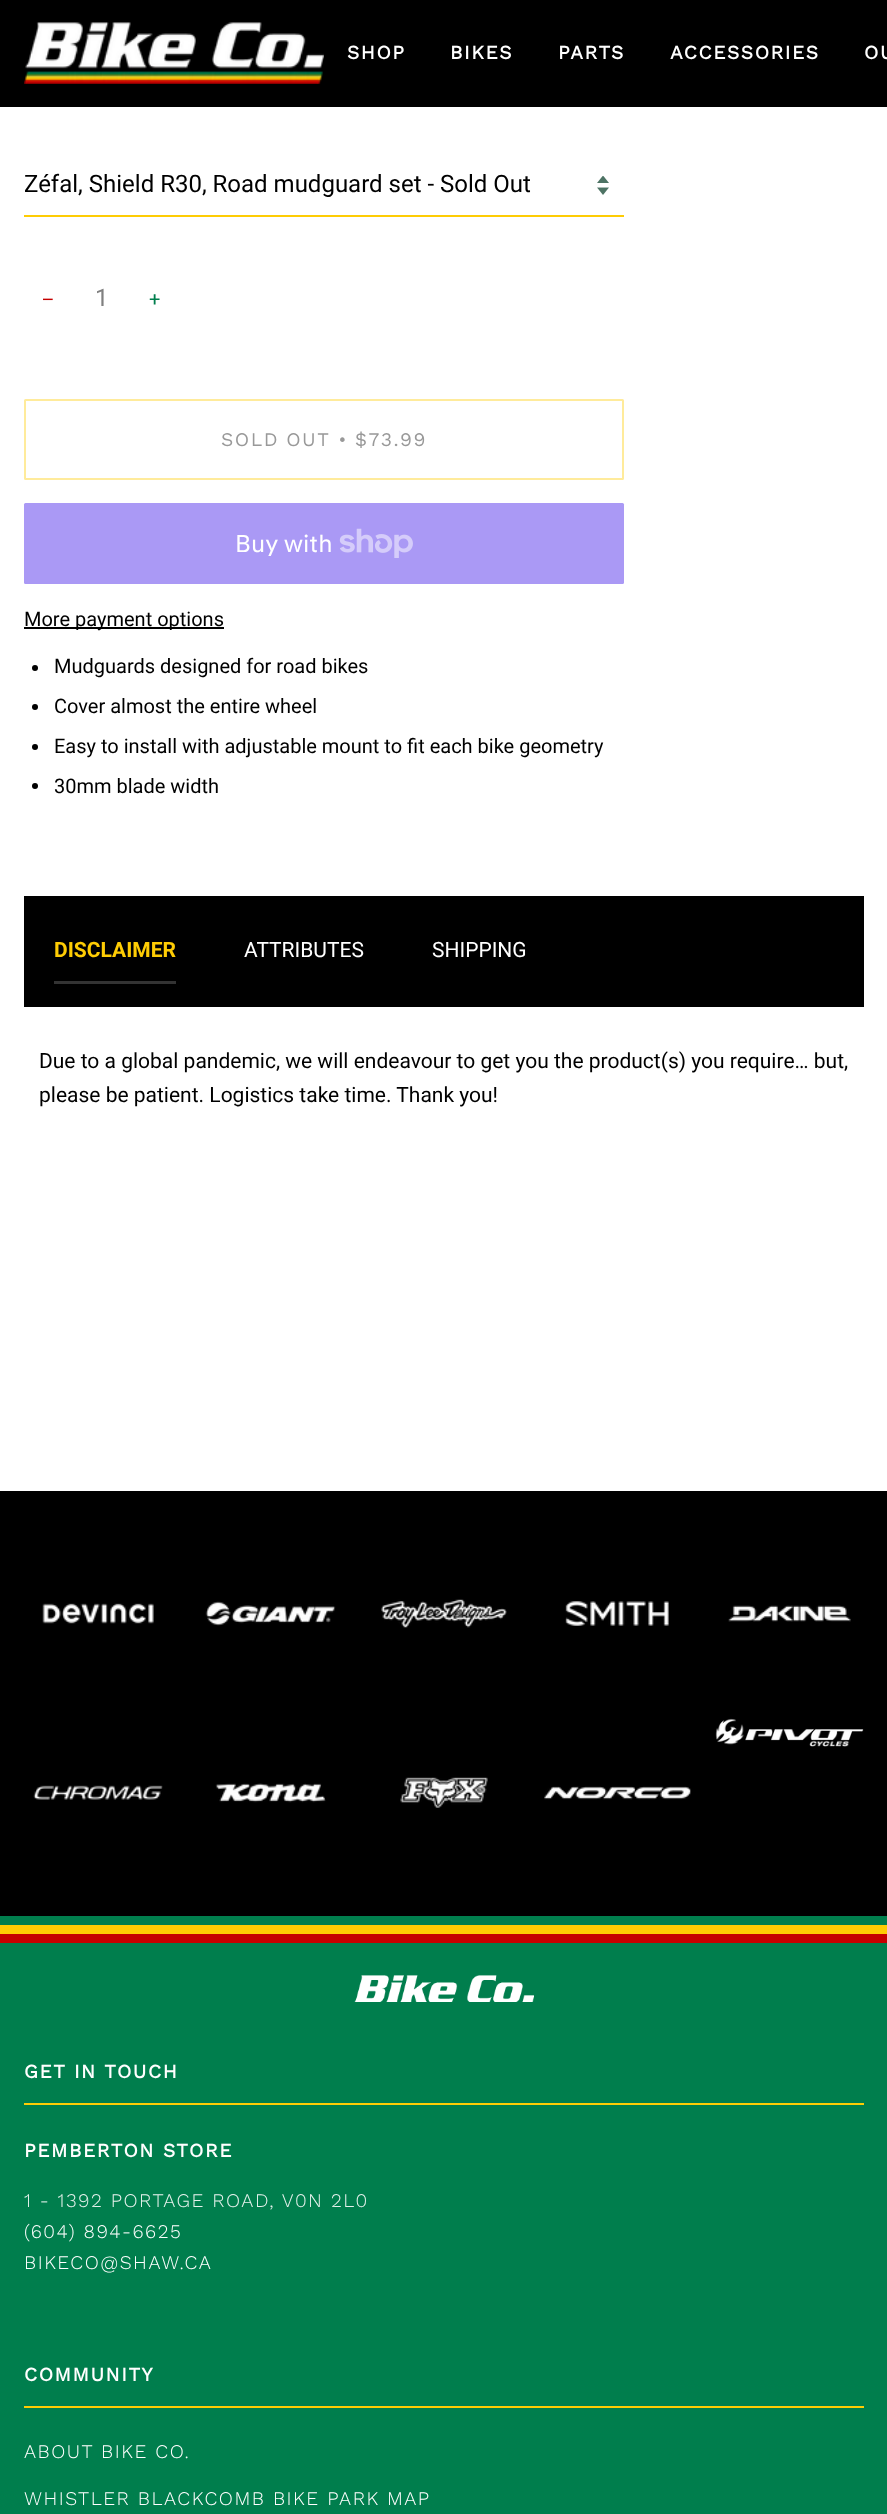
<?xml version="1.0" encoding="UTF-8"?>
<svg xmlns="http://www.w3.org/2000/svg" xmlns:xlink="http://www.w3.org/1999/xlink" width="887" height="2514">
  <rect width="100%" height="100%" fill="#ffffff" />
  <rect width="887" height="107" fill="#000000" />
  <image x="24" y="22" width="300" height="62" xlink:href="image1.png" />
  <image x="597" y="176" width="12" height="19" xlink:href="image2.png" />
  <rect x="24" y="215" width="600" height="2" fill="#fecc04" />
  <rect x="25" y="400" width="598" height="79" rx="0.5" fill="none" stroke="#ffeb9b" stroke-width="2" />
  <rect x="24" y="503" width="600" height="81" rx="1.5" fill="#aa99f5" />
  <image x="339" y="528" width="74" height="30" xlink:href="image3.png" />
  <rect x="24" y="627" width="200" height="2" fill="#000000" />
  <circle cx="35" cy="668" r="3" fill="#000000" />
  <circle cx="35" cy="707" r="3" fill="#000000" />
  <circle cx="35" cy="747" r="3" fill="#000000" />
  <circle cx="35" cy="786" r="3" fill="#000000" />
  <rect x="24" y="896" width="840" height="111" fill="#000000" />
  <rect x="54" y="981" width="122" height="3" fill="#333333" />
  <rect y="1491" width="887" height="425" fill="#000000" />
  <image x="42" y="1603" width="112" height="21" xlink:href="image4.png" />
  <image x="205" y="1601" width="131" height="25" xlink:href="image5.png" />
  <image x="381" y="1599" width="126" height="29" xlink:href="image6.png" />
  <image x="565" y="1601" width="104" height="25" xlink:href="image7.png" />
  <image x="728" y="1605" width="123" height="17" xlink:href="image8.png" />
  <image x="715" y="1718" width="149" height="29" xlink:href="image9.png" />
  <image x="33" y="1785" width="130" height="15" xlink:href="image10.png" />
  <image x="215" y="1783" width="111" height="20" xlink:href="image11.png" />
  <image x="400" y="1777" width="88" height="31" xlink:href="image12.png" />
  <image x="544" y="1786" width="147" height="14" xlink:href="image13.png" />
  <rect y="1943" width="887" height="571" fill="#007e4d" />
  <rect y="1925" width="887" height="9" fill="#fecc04" />
  <rect y="1916" width="887" height="9" fill="#007e4d" />
  <rect y="1934" width="887" height="9" fill="#c50000" />
  <image x="354" y="1975" width="180" height="27" xlink:href="image14.png" />
  <rect x="24" y="2103" width="840" height="2" fill="#fecc04" />
  <rect x="24" y="2406" width="840" height="2" fill="#fecc04" />
  <text x="347" y="59" style="font-family: Work Sans; font-size: 19.25px; font-weight: bold; letter-spacing: 1.5px; fill: #ffffff">SHOP</text>
  <text x="450" y="59" style="font-family: Work Sans; font-size: 19.25px; font-weight: bold; letter-spacing: 1.5px; fill: #ffffff">BIKES</text>
  <text x="558" y="59" style="font-family: Work Sans; font-size: 19.25px; font-weight: bold; letter-spacing: 1.5px; fill: #ffffff">PARTS</text>
  <text x="670" y="59" style="font-family: Work Sans; font-size: 19.25px; font-weight: bold; letter-spacing: 1.5px; fill: #ffffff">ACCESSORIES</text>
  <text x="864" y="59" style="font-family: Work Sans; font-size: 19.25px; font-weight: bold; letter-spacing: 1.5px; fill: #ffffff">OU</text>
  <text x="24" y="192" style="font-family: Roboto; font-size: 24px; fill: #000000">Zéfal, Shield R30, Road mudguard set - Sold Out</text>
  <text x="42" y="306" style="font-family: Liberation Sans; font-size: 20px; fill: #c50000">−</text>
  <text x="95" y="306" style="font-family: Roboto; font-size: 24px; fill: #808080">1</text>
  <text x="149" y="306" style="font-family: Roboto; font-size: 20px; fill: #007e4d">+</text>
  <text x="221" y="446" word-spacing="-1" style="font-family: Work Sans; font-size: 19.25px; letter-spacing: 1.5px; fill: #999999">SOLD OUT</text>
  <text x="339" y="446" style="font-family: Liberation Serif; font-size: 19.25px; letter-spacing: 1.5px; fill: #999999">•</text>
  <text x="355" y="446" style="font-family: Work Sans; font-size: 19.25px; letter-spacing: 1.5px; fill: #999999">$73.99</text>
  <text x="235" y="552" style="font-family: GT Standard; font-size: 24px; fill: #ffffff">Buy with</text>
  <text x="24" y="626" style="font-family: Roboto; font-size: 20px; fill: #000000">More payment options</text>
  <text x="54" y="673" style="font-family: Roboto; font-size: 20px; fill: #000000">Mudguards designed for road bikes</text>
  <text x="54" y="713" style="font-family: Roboto; font-size: 20px; fill: #000000">Cover almost the entire wheel</text>
  <text x="54" y="753" style="font-family: Roboto; font-size: 20px; fill: #000000">Easy to install with adjustable mount to fit each bike geometry</text>
  <text x="54" y="793" style="font-family: Roboto; font-size: 20px; fill: #000000">30mm blade width</text>
  <text x="54" y="957" style="font-family: Roboto; font-size: 21px; font-weight: bold; fill: #fecc04">DISCLAIMER</text>
  <text x="244" y="957" style="font-family: Roboto; font-size: 21px; fill: #ffffff">ATTRIBUTES</text>
  <text x="432" y="957" style="font-family: Roboto; font-size: 21px; fill: #ffffff">SHIPPING</text>
  <text x="39" y="1068" style="font-family: Roboto; font-size: 21px; fill: #000000">Due to a global pandemic, we will endeavour to get you the product(s) you require… but,</text>
  <text x="39" y="1102" style="font-family: Roboto; font-size: 21px; fill: #000000">please be patient. Logistics take time. Thank you!</text>
  <text x="24" y="2078" style="font-family: Work Sans; font-size: 19.25px; font-weight: bold; letter-spacing: 1.5px; fill: #ffffff">GET IN TOUCH</text>
  <text x="24" y="2157" style="font-family: Work Sans; font-size: 19.25px; font-weight: bold; letter-spacing: 1.5px; fill: #ffffff">PEMBERTON STORE</text>
  <text x="24" y="2207" style="font-family: Work Sans; font-size: 19.25px; font-weight: 300; letter-spacing: 1.5px; fill: #e6f2ed">1 - 1392 PORTAGE ROAD, V0N 2L0</text>
  <text x="24" y="2238" style="font-family: Work Sans; font-size: 19.25px; font-weight: 300; letter-spacing: 1.5px; fill: #ffffff">(604) 894-6625</text>
  <text x="24" y="2269" style="font-family: Work Sans; font-size: 19.25px; font-weight: 300; letter-spacing: 1.5px; fill: #ffffff">BIKECO@SHAW.CA</text>
  <text x="24" y="2381" style="font-family: Work Sans; font-size: 19.25px; font-weight: bold; letter-spacing: 1.5px; fill: #ffffff">COMMUNITY</text>
  <text x="24" y="2458" style="font-family: Work Sans; font-size: 19.25px; font-weight: 300; letter-spacing: 1.5px; fill: #ffffff">ABOUT BIKE CO.</text>
  <text x="24" y="2505" style="font-family: Work Sans; font-size: 19.25px; font-weight: 300; letter-spacing: 1.5px; fill: #ffffff">WHISTLER BLACKCOMB BIKE PARK MAP</text>
</svg>
